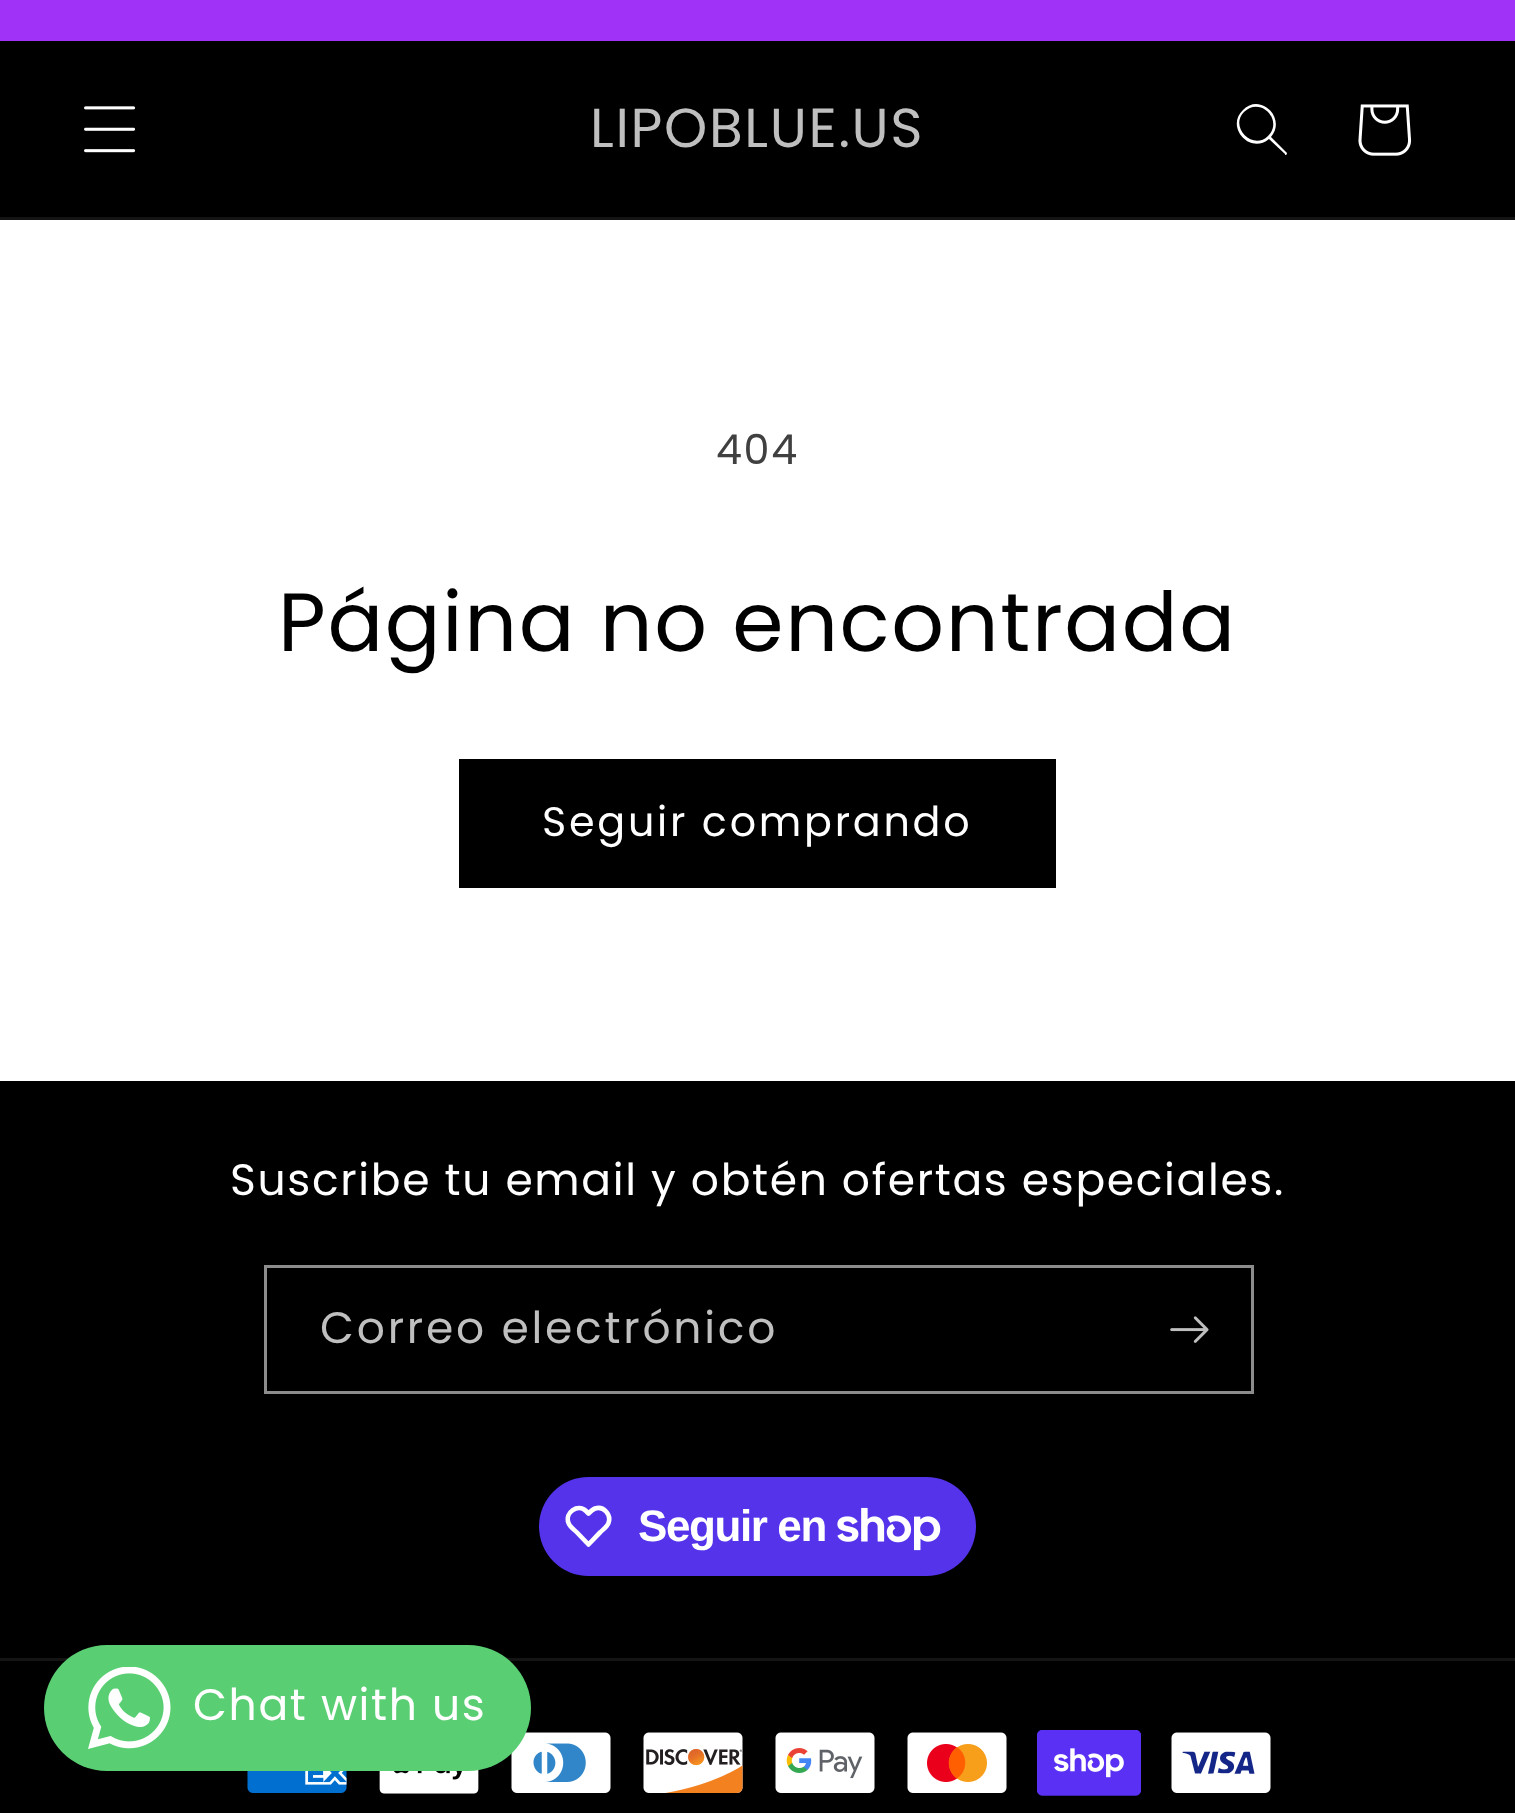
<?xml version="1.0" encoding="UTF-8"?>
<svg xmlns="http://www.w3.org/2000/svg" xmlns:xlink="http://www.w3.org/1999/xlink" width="1515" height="1813">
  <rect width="100%" height="100%" fill="#ffffff" />
  <rect width="1515" height="41" fill="#a031f7" />
  <rect y="41" width="1515" height="176" fill="#000000" />
  <rect y="217" width="1515" height="3" fill="#141414" />
  <image x="84" y="106" width="52" height="47" xlink:href="image1.png" />
  <path d="M 1268 136 c -15 15 -39 -9 -24 -24 c 16 -16 40 8 24 24 m 1 3 c -19 16 -44 -12 -26 -29 c 17 -18 44 8 28 27 l 16 16 c 0 2 -2 3 -2 1 z" fill="#ffffff" fill-rule="evenodd" />
  <image x="1358" y="104" width="54" height="52" xlink:href="image2.png" />
  <rect x="459" y="759" width="597" height="129" fill="#000000" />
  <rect y="1081" width="1515" height="732" fill="#000000" />
  <rect x="265.5" y="1266.5" width="987" height="126" fill="none" stroke="#8c8c8c" stroke-width="3" />
  <image x="1170" y="1316" width="39" height="27" xlink:href="image3.png" />
  <rect x="539" y="1477" width="437" height="99" rx="49.5" fill="#5433eb" />
  <path d="M 586 1511 l 2.5 2.5 c 2 -2 4 -4 6.5 -5 c 8.5 -3 16.5 6 13.5 14.5 c -1.5 4 -5.5 6.5 -8.5 9.5 l -11.5 12 l -11.5 -12 c -3 -3 -7 -5.5 -8.5 -9.5 c -4 -10.5 9.5 -20 17.5 -12 z" fill="none" stroke="#ffffff" stroke-width="4.6" stroke-linejoin="round" />
  <image x="837" y="1507" width="104" height="44" xlink:href="image4.png" />
  <rect y="1658" width="1515" height="3" fill="#141414" />
  <image x="247" y="1771" width="100" height="22" xlink:href="image5.png" />
  <image x="379" y="1770" width="100" height="24" xlink:href="image6.png" />
  <image x="511" y="1732" width="100" height="61" xlink:href="image7.png" />
  <image x="643" y="1732" width="100" height="61" xlink:href="image8.png" />
  <image x="775" y="1732" width="100" height="61" xlink:href="image9.png" />
  <image x="907" y="1732" width="100" height="61" xlink:href="image10.png" />
  <image x="1037" y="1730" width="104" height="66" xlink:href="image11.png" />
  <image x="1171" y="1732" width="100" height="61" xlink:href="image12.png" />
  <rect x="44" y="1645" width="487" height="126" rx="63" fill="#59ce72" />
  <image x="88" y="1667" width="83" height="82" xlink:href="image13.png" />
  <text x="590" y="147" style="font-family: Poppins; font-size: 55px; letter-spacing: 1.65px; fill: #bfbfbf">LIPOBLUE.US</text>
  <text x="716" y="464" style="font-family: Poppins; font-size: 41.25px; letter-spacing: 1.65px; fill: #404040">404</text>
  <text x="278" y="651" style="font-family: Poppins; font-size: 82.5px; letter-spacing: 1.65px; fill: #000000">Página no encontrada</text>
  <text x="542" y="836" style="font-family: Poppins; font-size: 41.25px; letter-spacing: 2.75px; fill: #ffffff">Seguir comprando</text>
  <text x="230" y="1195" style="font-family: Poppins; font-size: 44px; letter-spacing: 1.65px; fill: #ffffff">Suscribe tu email y obtén ofertas especiales.</text>
  <text x="320" y="1343" style="font-family: Poppins; font-size: 44px; letter-spacing: 2.75px; fill: #bfbfbf">Correo electrónico</text>
  <text x="638" y="1541" style="font-family: Liberation Sans; font-size: 44px; font-weight: bold; letter-spacing: -1.4px; fill: #ffffff">Seguir en</text>
  <text x="193" y="1720" style="font-family: Poppins; font-size: 44px; letter-spacing: 1.65px; fill: #ffffff">Chat with us</text>
</svg>
